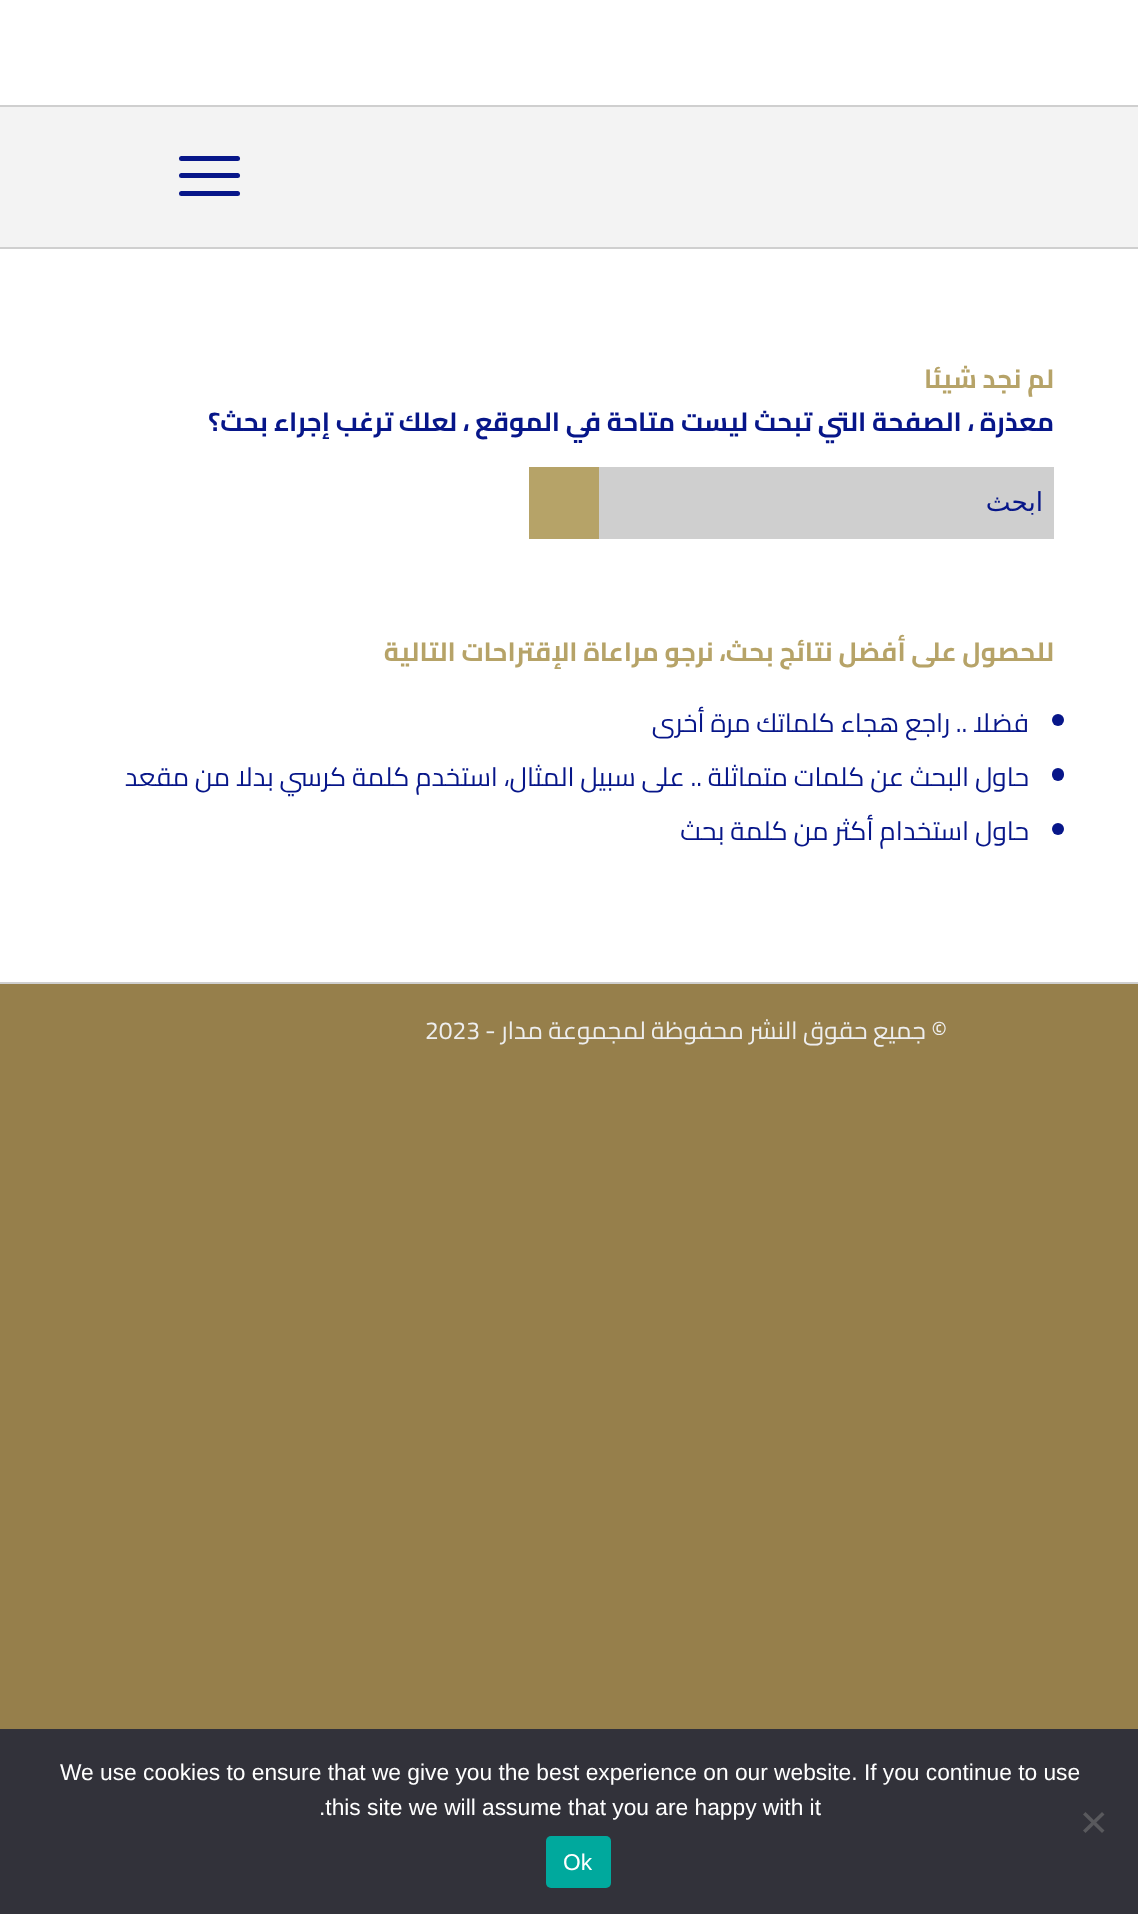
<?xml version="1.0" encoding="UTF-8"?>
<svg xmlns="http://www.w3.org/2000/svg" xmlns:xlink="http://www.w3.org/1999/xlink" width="1138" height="1914">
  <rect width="100%" height="100%" fill="#967f4b" />
  <rect y="249" width="1138" height="733" fill="#ffffff" />
  <rect width="1138" height="105" fill="#ffffff" />
  <rect y="105" width="1138" height="2" fill="#cfcfcf" />
  <rect y="107" width="1138" height="140" fill="#f3f3f3" />
  <rect y="247" width="1138" height="2" fill="#cfcfcf" />
  <rect x="179" y="173" width="61" height="5" rx="2.5" fill="#071689" />
  <rect x="179" y="156" width="61" height="5" rx="2.5" fill="#071689" />
  <rect x="179" y="191" width="61" height="5" rx="2.5" fill="#071689" />
  <rect x="599" y="467" width="455" height="72" fill="#cfcfcf" />
  <rect x="529" y="467" width="70" height="72" fill="#b6a368" />
  <circle cx="1058" cy="720" r="6" fill="#071689" />
  <rect x="1052" y="768" width="12" height="13" rx="6" fill="#071689" />
  <circle cx="1058" cy="829" r="6" fill="#071689" />
  <rect y="982" width="1138" height="2" fill="#cfcfcf" />
  <rect y="1729" width="1138" height="185" fill="#32323a" />
  <path d="M 1102 1812 l 2.5 2.5 l -19 18.5 l -2.5 -2.5 z" fill="#59595d" />
  <path d="M 1083 1814.5 l 2.5 -2.5 l 19 18.5 l -2.5 2.5 z" fill="#59595d" />
  <rect x="546" y="1836" width="65" height="52" rx="5" fill="#00a99d" />
  <text x="1054" y="388" style="font-family: Cairo; font-size: 26.25px; font-weight: bold; direction: rtl; fill: #b6a368">لم نجد شيئا</text>
  <text x="1054" y="431" style="font-family: Cairo; font-size: 26.25px; font-weight: bold; direction: rtl; fill: #071689">معذرة ، الصفحة التي تبحث ليست متاحة</text>
  <text x="601" y="431" style="font-family: Cairo; font-size: 26.25px; font-weight: bold; direction: rtl; fill: #071689">في الموقع ، لعلك ترغب إجراء بحث؟</text>
  <text x="1043" y="511" style="font-family: DejaVu Sans; font-size: 26.25px; direction: rtl; fill: #071689">ابحث</text>
  <text x="1054" y="661" style="font-family: Cairo; font-size: 26.25px; font-weight: bold; direction: rtl; fill: #b6a368">للحصول على أفضل نتائج بحث، نرجو مراعاة الإقتراحات التالية</text>
  <text x="1029" y="732" style="font-family: Cairo; font-size: 26.25px; direction: rtl; fill: #071689">فضلا .. راجع هجاء كلماتك مرة أخرى</text>
  <text x="1029" y="786" style="font-family: Cairo; font-size: 26.25px; direction: rtl; fill: #071689">حاول البحث عن كلمات متماثلة .. على سبيل المثال، استخدم كلمة كرسي بدلا من مقعد</text>
  <text x="1029" y="840" style="font-family: Cairo; font-size: 26.25px; direction: rtl; fill: #071689">حاول استخدام أكثر من كلمة بحث</text>
  <text x="947" y="1039" style="font-family: Cairo; font-size: 24.5px; direction: rtl; fill: #eeeeee">© جميع حقوق النشر محفوظة لمجموعة مدار -</text>
  <text x="425" y="1039" style="font-family: Cairo; font-size: 24.5px; fill: #eeeeee">2023</text>
  <text x="60" y="1780" style="font-family: Liberation Sans; font-size: 22.75px; fill: #ffffff">We use cookies to ensure that we give you the best experience on our website. If you continue to use</text>
  <text x="319" y="1815" style="font-family: Liberation Sans; font-size: 22.75px; fill: #ffffff">.this site we will assume that you are happy with it</text>
  <text x="563" y="1870" style="font-family: Liberation Sans; font-size: 22.75px; fill: #ffffff">Ok</text>
</svg>
